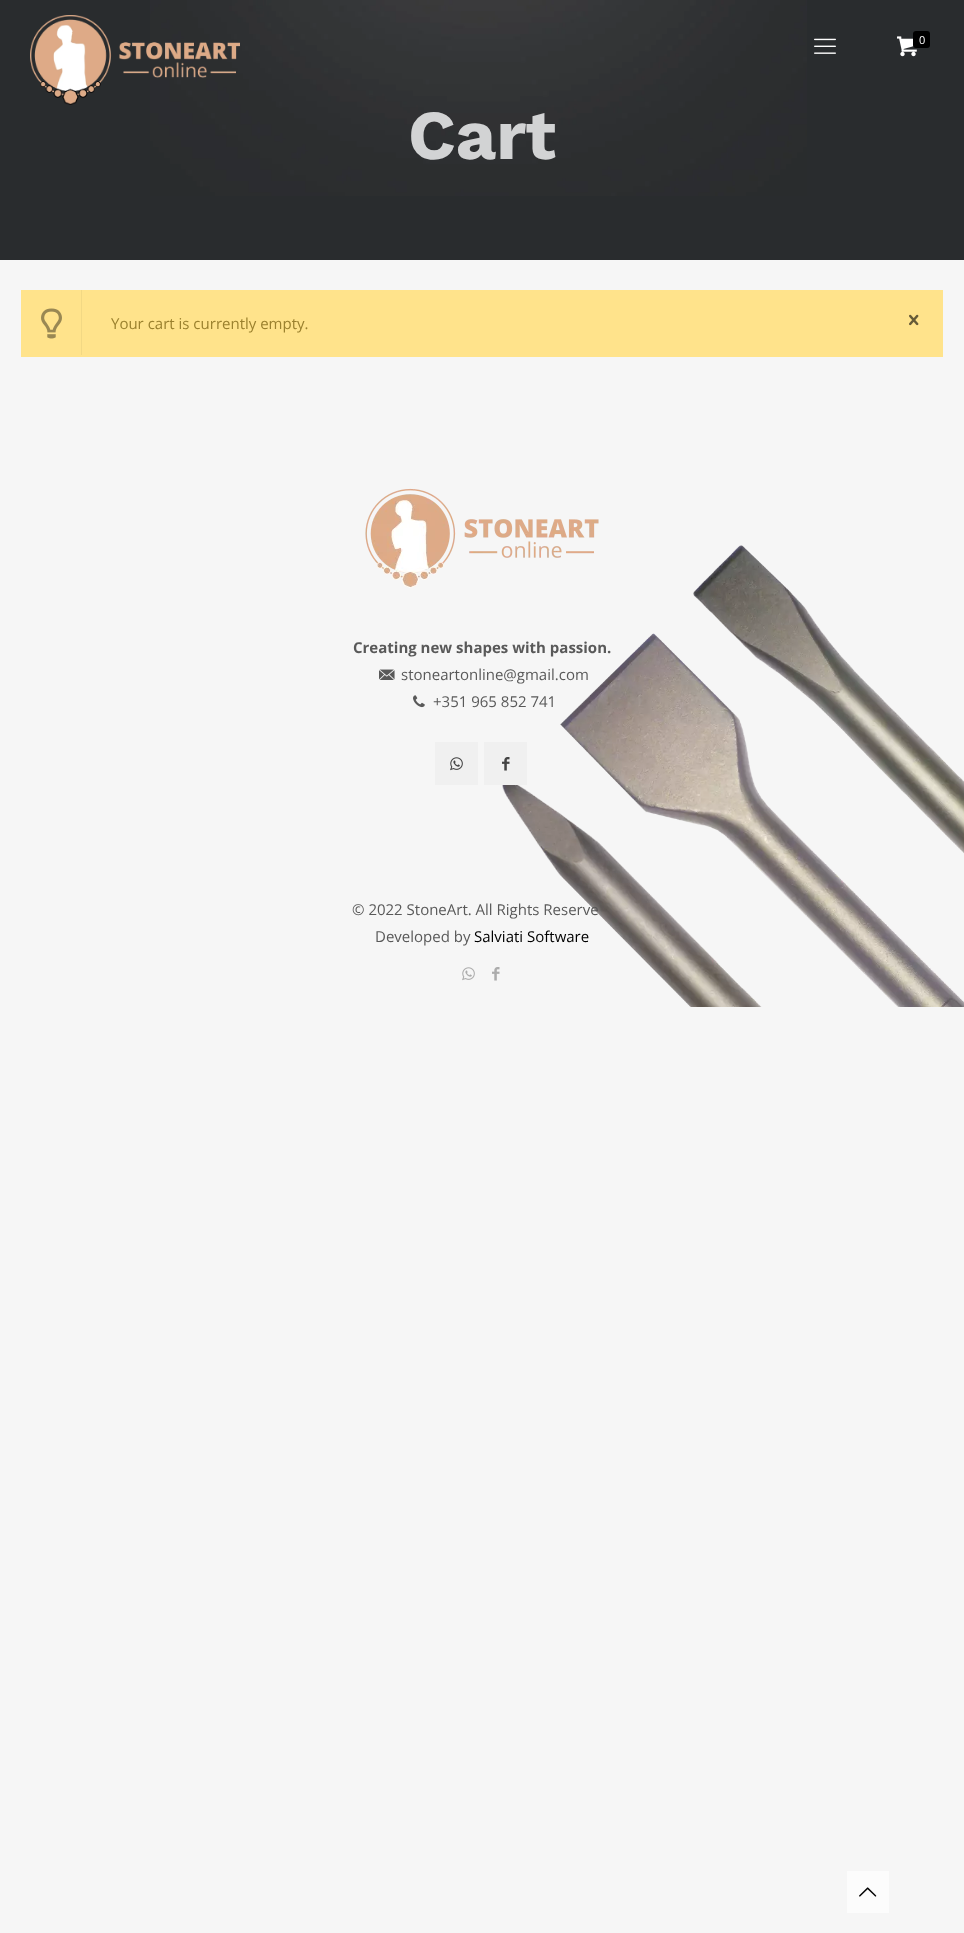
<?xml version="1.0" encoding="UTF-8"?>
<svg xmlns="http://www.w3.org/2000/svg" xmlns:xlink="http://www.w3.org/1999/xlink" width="964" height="1933">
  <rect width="100%" height="100%" fill="#f6f6f6" />
  <rect width="964" height="260" fill="#292c2e" />
  <image x="150" y="0" width="657" height="196" xlink:href="image4.png" />
  <image x="30" y="15" width="210" height="90" xlink:href="image1.png" />
  <image x="814" y="38" width="22" height="16" xlink:href="image2.png" />
  <image x="897" y="36" width="20" height="21" xlink:href="image3.png" />
  <rect x="913" y="31" width="17" height="17" rx="3" fill="#000000" />
  <rect x="21" y="290" width="922" height="67" fill="#ffe38b" />
  <rect x="81" y="290" width="1" height="65" fill="#f2d884" />
  <image x="41" y="308" width="21" height="31" xlink:href="image5.png" />
  <image x="909" y="314" width="10" height="12" xlink:href="image6.png" />
  <image x="502" y="545" width="462" height="462" xlink:href="image7.png" />
  <image x="365" y="488" width="234" height="100" xlink:href="image8.png" />
  <image x="379" y="669" width="16" height="11" xlink:href="image9.png" />
  <image x="413" y="695" width="12" height="13" xlink:href="image10.png" />
  <rect x="435" y="742" width="43" height="43" fill="#f0f0f0" />
  <image x="450" y="757" width="13" height="14" xlink:href="image11.png" />
  <rect x="484" y="742" width="43" height="43" fill="#f0f0f0" />
  <image x="502" y="757" width="8" height="14" xlink:href="image12.png" />
  <image x="462" y="967" width="13" height="14" xlink:href="image13.png" />
  <image x="492" y="967" width="8" height="14" xlink:href="image14.png" />
  <rect x="847" y="1871" width="42" height="42" fill="#fcfcfc" />
  <image x="859" y="1887" width="18" height="10" xlink:href="image15.png" />
  <text x="919" y="44" style="font-family: Open Sans; font-size: 11px; fill: #ffffff">0</text>
  <text x="408" y="159" style="font-family: Work Sans; font-size: 70px; font-weight: bold; fill: #d2d3d4">Cart</text>
  <text x="111" y="329" style="font-family: Open Sans; font-size: 15px; fill: #9b812e">Your cart is currently empty.</text>
  <text x="353" y="653" style="font-family: Open Sans; font-size: 15px; font-weight: bold; fill: #595959">Creating new shapes with passion.</text>
  <text x="401" y="680" style="font-family: Open Sans; font-size: 15px; fill: #595959">stoneartonline@gmail.com</text>
  <text x="433" y="707" style="font-family: Open Sans; font-size: 15px; fill: #595959">+351 965 852 741</text>
  <text x="352" y="915" style="font-family: Open Sans; font-size: 15px; fill: #595959">© 2022 StoneArt. All Rights Reserve</text>
  <text x="375" y="942" style="font-family: Open Sans; font-size: 15px; fill: #595959">Developed by</text>
  <text x="474" y="942" style="font-family: Open Sans; font-size: 15px; fill: #000000">Salviati Software</text>
</svg>
